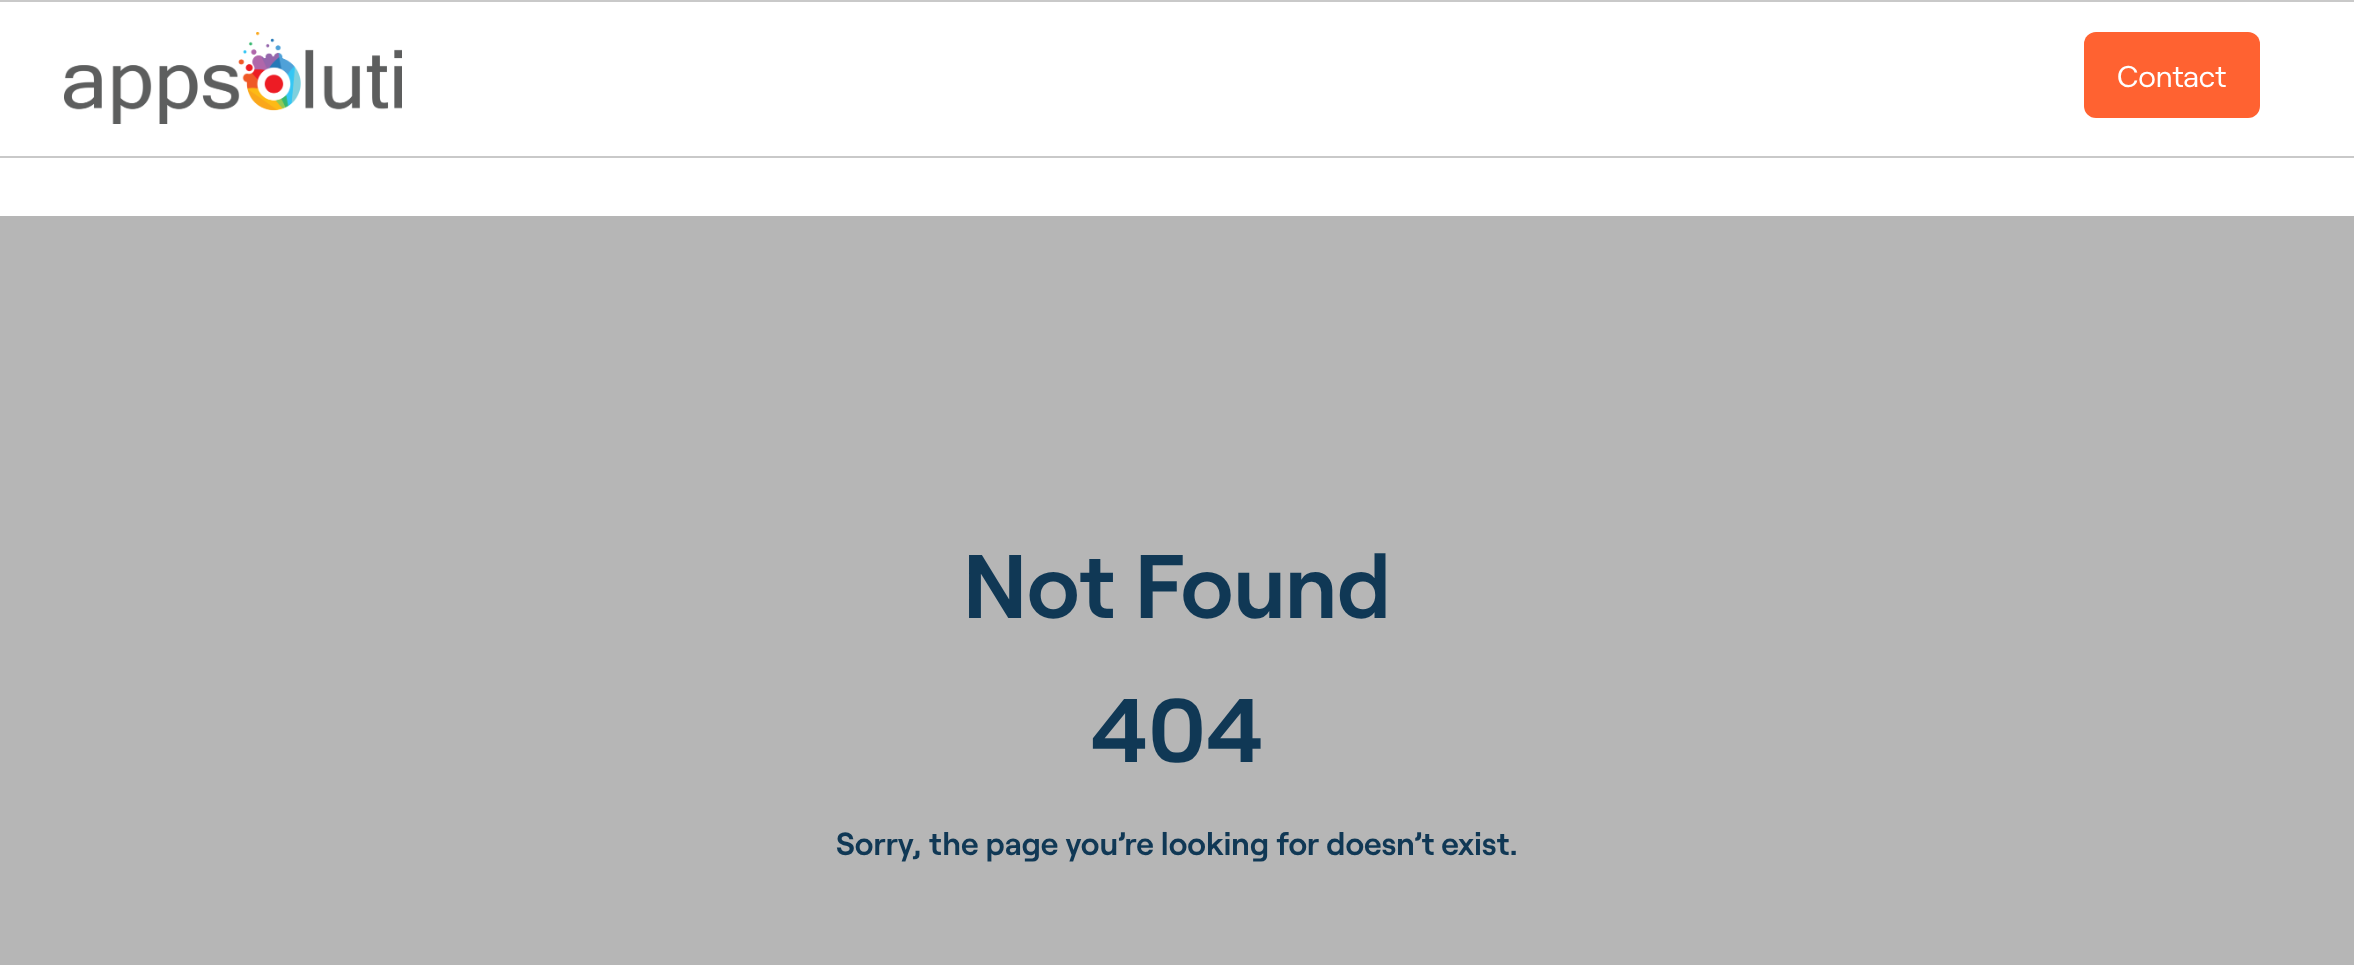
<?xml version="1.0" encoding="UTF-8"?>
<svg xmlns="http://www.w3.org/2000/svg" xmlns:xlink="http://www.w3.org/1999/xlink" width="2354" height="965">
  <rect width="100%" height="100%" fill="#ffffff" />
  <rect width="2354" height="2" fill="#c9c9c9" />
  <rect y="156" width="2354" height="2" fill="#c9c9c9" />
  <image x="64" y="32" width="338" height="92" xlink:href="image1.png" />
  <rect x="2084" y="32" width="176" height="86" rx="12" fill="#ff6231" />
  <rect y="216" width="2354" height="749" fill="#b6b6b6" />
  <text x="2117" y="87" style="font-family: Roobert; font-size: 30px; fill: #ffffff">Contact</text>
  <text x="963" y="618" style="font-family: Roobert; font-size: 90px; font-weight: 600; fill: #103855">Not Found</text>
  <text x="1090" y="762" style="font-family: Roobert; font-size: 90px; font-weight: 600; fill: #103855">404</text>
  <text x="836" y="855" style="font-family: Roobert; font-size: 32px; font-weight: 600; fill: #103855">Sorry, the page you’re looking for doesn’t exist.</text>
</svg>
